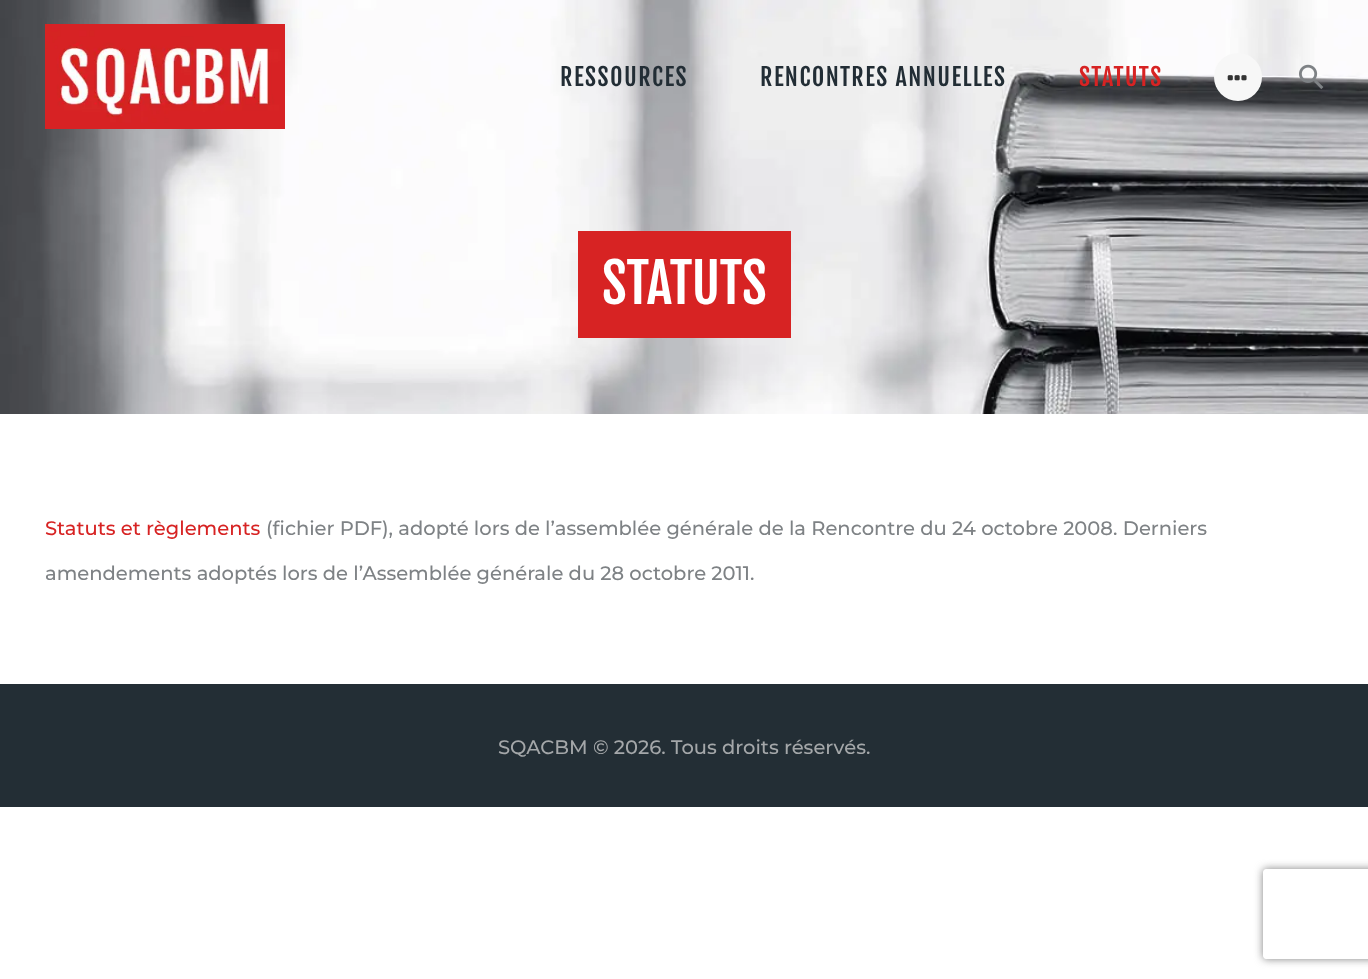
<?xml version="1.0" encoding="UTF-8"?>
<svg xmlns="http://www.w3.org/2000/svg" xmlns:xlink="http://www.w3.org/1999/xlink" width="1368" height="979">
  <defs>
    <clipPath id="clip1"><path d="M 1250 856 h 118 v 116 h -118 z m 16 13 h 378 c 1.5 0 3 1.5 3 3 v 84 c 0 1.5 -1.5 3 -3 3 h -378 c -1.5 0 -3 -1.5 -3 -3 v -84 c 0 -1.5 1.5 -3 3 -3 z" clip-rule="evenodd" /></clipPath>
  </defs>
  <rect width="100%" height="100%" fill="#ffffff" />
  <image x="0" y="0" width="1368" height="414" xlink:href="image1.png" />
  <image x="45" y="24" width="240" height="105" xlink:href="image2.png" />
  <circle cx="1238" cy="77" r="24" fill="#f7f7f7" />
  <image x="1227" y="75" width="20" height="6" xlink:href="image3.png" />
  <image x="1299" y="64" width="25" height="25" xlink:href="image4.png" />
  <rect x="578" y="231" width="213" height="107" fill="#d72323" />
  <rect y="684" width="1368" height="123" fill="#232e35" />
  <g clip-path="url(#clip1)">
    <rect x="1263" y="869" width="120" height="90" rx="3" fill="#808080" filter="blur(4px)" />
  </g>
  <text x="560" y="86" style="font-family: Fjalla One; font-size: 24px; letter-spacing: 1.5px; fill: #222d35">RESSOURCES</text>
  <text x="760" y="86" style="font-family: Fjalla One; font-size: 24px; letter-spacing: 1.5px; fill: #222d35">RENCONTRES ANNUELLES</text>
  <text x="1079" y="86" style="font-family: Fjalla One; font-size: 24px; letter-spacing: 1.5px; fill: #d72323">STATUTS</text>
  <text x="602" y="304" style="font-family: Fjalla One; font-size: 54px; fill: #ffffff">STATUTS</text>
  <text x="45" y="535" style="font-family: Montserrat; font-size: 19.5px; font-weight: 500; fill: #d72323">Statuts et règlements</text>
  <text x="266" y="535" style="font-family: Montserrat; font-size: 19.5px; font-weight: 500; fill: #7e8285">(fichier PDF), adopté lors de l’assemblée générale de la Rencontre du 24 octobre 2008. Derniers</text>
  <text x="45" y="580" style="font-family: Montserrat; font-size: 19.5px; font-weight: 500; fill: #7e8285">amendements adoptés lors de l’Assemblée générale du 28 octobre 2011.</text>
  <text x="498" y="754" style="font-family: Montserrat; font-size: 19.5px; font-weight: 500; fill: #a4a7a9">SQACBM © 2026. Tous droits réservés.</text>
</svg>
